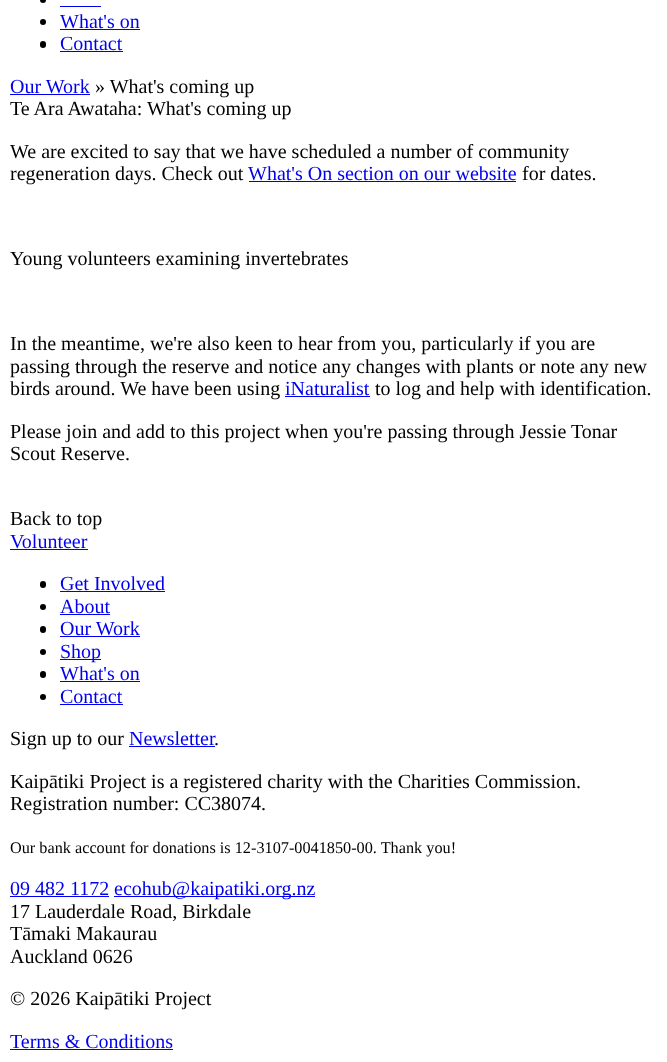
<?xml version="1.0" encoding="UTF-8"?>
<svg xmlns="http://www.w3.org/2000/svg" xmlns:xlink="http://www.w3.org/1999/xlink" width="667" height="1062">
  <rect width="100%" height="100%" fill="#ffffff" />
  <circle cx="43" cy="0" r="3" fill="#000000" />
  <rect x="60" y="6" width="41" height="1" fill="#0000ee" />
  <circle cx="43" cy="22" r="3" fill="#000000" />
  <rect x="60" y="29" width="80" height="1" fill="#0000ee" />
  <rect x="40" y="41" width="6" height="7" rx="3" fill="#000000" />
  <rect x="60" y="51" width="63" height="1" fill="#0000ee" />
  <rect x="10" y="94" width="80" height="1" fill="#0000ee" />
  <rect x="249" y="181" width="267" height="1" fill="#0000ee" />
  <rect x="285" y="396" width="85" height="1" fill="#0000ee" />
  <rect x="10" y="549" width="78" height="1" fill="#0000ee" />
  <rect x="40" y="581" width="6" height="7" rx="3" fill="#000000" />
  <rect x="60" y="591" width="105" height="1" fill="#0000ee" />
  <circle cx="43" cy="607" r="3" fill="#000000" />
  <rect x="60" y="614" width="50" height="1" fill="#0000ee" />
  <rect x="40" y="626" width="6" height="7" rx="3" fill="#000000" />
  <rect x="60" y="636" width="80" height="1" fill="#0000ee" />
  <circle cx="43" cy="652" r="3" fill="#000000" />
  <rect x="60" y="659" width="41" height="1" fill="#0000ee" />
  <rect x="40" y="671" width="6" height="7" rx="3" fill="#000000" />
  <rect x="60" y="681" width="80" height="1" fill="#0000ee" />
  <circle cx="43" cy="697" r="3" fill="#000000" />
  <rect x="60" y="704" width="63" height="1" fill="#0000ee" />
  <rect x="129" y="746" width="86" height="1" fill="#0000ee" />
  <rect x="10" y="896" width="99" height="1" fill="#0000ee" />
  <rect x="114" y="896" width="201" height="1" fill="#0000ee" />
  <rect x="10" y="1049" width="163" height="1" fill="#0000ee" />
  <text x="60" y="28" style="font-family: Liberation Serif; font-size: 20px; fill: #0000ee">What's on</text>
  <text x="60" y="50" style="font-family: Liberation Serif; font-size: 20px; fill: #0000ee">Contact</text>
  <text x="10" y="93" style="font-family: Liberation Serif; font-size: 20px; fill: #0000ee">Our Work</text>
  <text x="95" y="93" style="font-family: Liberation Serif; font-size: 20px; fill: #000000">» What's coming up</text>
  <text x="10" y="115" style="font-family: Liberation Serif; font-size: 20px; fill: #000000">Te Ara Awataha: What's coming up</text>
  <text x="10" y="158" style="font-family: Liberation Serif; font-size: 20px; fill: #000000">We are excited to say that we have scheduled a number of community</text>
  <text x="10" y="180" style="font-family: Liberation Serif; font-size: 20px; fill: #000000">regeneration days. Check out</text>
  <text x="248" y="180" style="font-family: Liberation Serif; font-size: 20px; fill: #0000ee">What's On section on our website</text>
  <text x="522" y="180" style="font-family: Liberation Serif; font-size: 20px; fill: #000000">for dates.</text>
  <text x="10" y="265" style="font-family: Liberation Serif; font-size: 20px; fill: #000000">Young volunteers examining invertebrates</text>
  <text x="10" y="350" style="font-family: Liberation Serif; font-size: 20px; fill: #000000">In the meantime, we're also keen to hear from you, particularly if you are</text>
  <text x="10" y="373" style="font-family: Liberation Serif; font-size: 20px; fill: #000000">passing through the reserve and notice any changes with plants or note any new</text>
  <text x="10" y="395" style="font-family: Liberation Serif; font-size: 20px; fill: #000000">birds around. We have been using</text>
  <text x="285" y="395" style="font-family: Liberation Serif; font-size: 20px; fill: #0000ee">iNaturalist</text>
  <text x="375" y="395" style="font-family: Liberation Serif; font-size: 20px; fill: #000000">to log and help with identification.</text>
  <text x="10" y="438" style="font-family: Liberation Serif; font-size: 20px; fill: #000000">Please join and add to this project when you're passing through Jessie Tonar</text>
  <text x="10" y="460" style="font-family: Liberation Serif; font-size: 20px; fill: #000000">Scout Reserve.</text>
  <text x="10" y="525" style="font-family: Liberation Serif; font-size: 20px; fill: #000000">Back to top</text>
  <text x="10" y="548" style="font-family: Liberation Serif; font-size: 20px; fill: #0000ee">Volunteer</text>
  <text x="60" y="590" style="font-family: Liberation Serif; font-size: 20px; fill: #0000ee">Get Involved</text>
  <text x="60" y="613" style="font-family: Liberation Serif; font-size: 20px; fill: #0000ee">About</text>
  <text x="60" y="635" style="font-family: Liberation Serif; font-size: 20px; fill: #0000ee">Our Work</text>
  <text x="60" y="658" style="font-family: Liberation Serif; font-size: 20px; fill: #0000ee">Shop</text>
  <text x="60" y="680" style="font-family: Liberation Serif; font-size: 20px; fill: #0000ee">What's on</text>
  <text x="60" y="703" style="font-family: Liberation Serif; font-size: 20px; fill: #0000ee">Contact</text>
  <text x="10" y="745" style="font-family: Liberation Serif; font-size: 20px; fill: #000000">Sign up to our</text>
  <text x="129" y="745" style="font-family: Liberation Serif; font-size: 20px; fill: #0000ee">Newsletter</text>
  <text x="214" y="745" style="font-family: Liberation Serif; font-size: 20px; fill: #000000">.</text>
  <text x="10" y="788" style="font-family: Liberation Serif; font-size: 20px; fill: #000000">Kaipātiki Project is a registered charity with the Charities Commission.</text>
  <text x="10" y="810" style="font-family: Liberation Serif; font-size: 20px; fill: #000000">Registration number: CC38074.</text>
  <text x="10" y="853" style="font-family: Liberation Serif; font-size: 16.25px; fill: #000000">Our bank account for donations is 12-3107-0041850-00. Thank you!</text>
  <text x="10" y="895" style="font-family: Liberation Serif; font-size: 20px; fill: #0000ee">09 482 1172</text>
  <text x="114" y="895" style="font-family: Liberation Serif; font-size: 20px; fill: #0000ee">ecohub@kaipatiki.org.nz</text>
  <text x="10" y="918" style="font-family: Liberation Serif; font-size: 20px; fill: #000000">17 Lauderdale Road, Birkdale</text>
  <text x="10" y="940" style="font-family: Liberation Serif; font-size: 20px; fill: #000000">Tāmaki Makaurau</text>
  <text x="10" y="963" style="font-family: Liberation Serif; font-size: 20px; fill: #000000">Auckland 0626</text>
  <text x="10" y="1005" style="font-family: Liberation Serif; font-size: 20px; fill: #000000">© 2026 Kaipātiki Project</text>
  <text x="10" y="1048" style="font-family: Liberation Serif; font-size: 20px; fill: #0000ee">Terms &amp; Conditions</text>
</svg>
